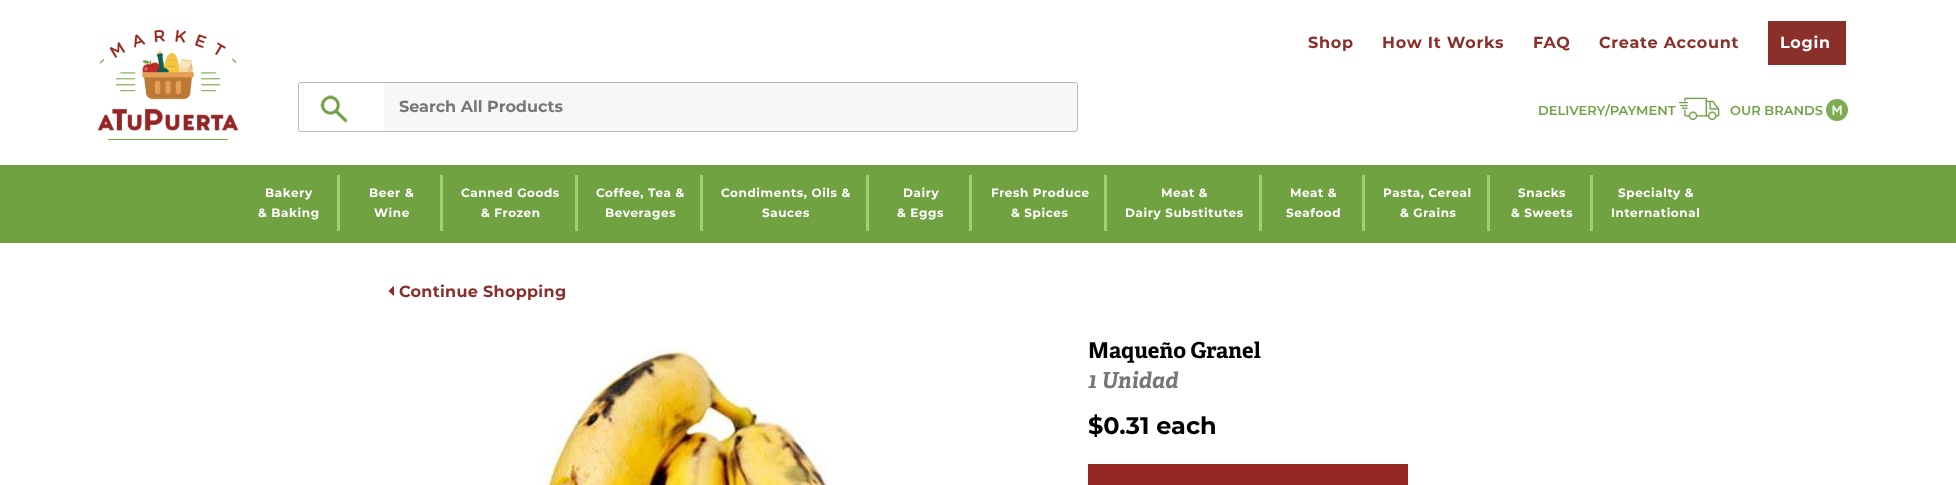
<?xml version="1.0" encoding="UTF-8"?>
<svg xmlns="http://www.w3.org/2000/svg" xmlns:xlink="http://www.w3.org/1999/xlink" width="1956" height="485">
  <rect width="100%" height="100%" fill="#ffffff" />
  <image x="97" y="30" width="141" height="110" xlink:href="image1.png" />
  <rect x="1768" y="21" width="78" height="44" fill="#8a2f2a" />
  <rect x="298.5" y="82.5" width="779" height="49" rx="2.5" fill="#f7f7f7" stroke="#b7b7b7" />
  <rect x="299" y="83" width="85" height="48" rx="3" fill="#ffffff" />
  <image x="320" y="95" width="28" height="28" xlink:href="image2.png" />
  <image x="1679" y="97" width="41" height="24" xlink:href="image3.png" />
  <circle cx="1837" cy="110" r="11" fill="#7eab52" />
  <image x="1831" y="104" width="11" height="12" xlink:href="image4.png" />
  <rect y="165" width="1956" height="78" fill="#71a241" />
  <rect x="337" y="175" width="3" height="56" fill="#9ed171" />
  <rect x="440" y="175" width="3" height="56" fill="#9ed171" />
  <rect x="575" y="175" width="3" height="56" fill="#9ed171" />
  <rect x="700" y="175" width="3" height="56" fill="#9ed171" />
  <rect x="866" y="175" width="3" height="56" fill="#9ed171" />
  <rect x="969" y="175" width="3" height="56" fill="#9ed171" />
  <rect x="1104" y="175" width="3" height="56" fill="#9ed171" />
  <rect x="1259" y="175" width="3" height="56" fill="#9ed171" />
  <rect x="1362" y="175" width="3" height="56" fill="#9ed171" />
  <rect x="1487" y="175" width="3" height="56" fill="#9ed171" />
  <rect x="1590" y="175" width="3" height="56" fill="#9ed171" />
  <image x="388" y="286" width="6" height="10" xlink:href="image5.png" />
  <image x="542" y="347" width="289" height="138" xlink:href="image6.png" />
  <rect x="1088" y="464" width="320" height="21" fill="#962624" />
  <text x="1308" y="48" style="font-family: Montserrat; font-size: 16px; font-weight: bold; letter-spacing: 0.75px; fill: #8a2f2a">Shop</text>
  <text x="1382" y="48" style="font-family: Montserrat; font-size: 16px; font-weight: bold; letter-spacing: 0.75px; fill: #8a2f2a">How It Works</text>
  <text x="1533" y="48" style="font-family: Montserrat; font-size: 16px; font-weight: bold; letter-spacing: 0.75px; fill: #8a2f2a">FAQ</text>
  <text x="1599" y="48" style="font-family: Montserrat; font-size: 16px; font-weight: bold; letter-spacing: 0.75px; fill: #8a2f2a">Create Account</text>
  <text x="1780" y="48" style="font-family: Montserrat; font-size: 16px; font-weight: bold; letter-spacing: 0.75px; fill: #ffffff">Login</text>
  <text x="399" y="112" style="font-family: Montserrat; font-size: 16px; font-weight: bold; fill: #777777">Search All Products</text>
  <text x="1538" y="115" style="font-family: Montserrat; font-size: 13px; font-weight: 600; fill: #72a147">DELIVERY/PAYMENT</text>
  <text x="1730" y="115" style="font-family: Montserrat; font-size: 13px; font-weight: 600; fill: #72a147">OUR BRANDS</text>
  <text x="265" y="197" style="font-family: Montserrat; font-size: 12px; font-weight: bold; letter-spacing: 0.6px; fill: #ffffff">Bakery</text>
  <text x="258" y="217" style="font-family: Montserrat; font-size: 12px; font-weight: bold; letter-spacing: 0.6px; fill: #ffffff">&amp; Baking</text>
  <text x="369" y="197" style="font-family: Montserrat; font-size: 12px; font-weight: bold; letter-spacing: 0.6px; fill: #ffffff">Beer &amp;</text>
  <text x="374" y="217" style="font-family: Montserrat; font-size: 12px; font-weight: bold; letter-spacing: 0.6px; fill: #ffffff">Wine</text>
  <text x="461" y="197" style="font-family: Montserrat; font-size: 12px; font-weight: bold; letter-spacing: 0.6px; fill: #ffffff">Canned Goods</text>
  <text x="481" y="217" style="font-family: Montserrat; font-size: 12px; font-weight: bold; letter-spacing: 0.6px; fill: #ffffff">&amp; Frozen</text>
  <text x="596" y="197" style="font-family: Montserrat; font-size: 12px; font-weight: bold; letter-spacing: 0.6px; fill: #ffffff">Coffee, Tea &amp;</text>
  <text x="605" y="217" style="font-family: Montserrat; font-size: 12px; font-weight: bold; letter-spacing: 0.6px; fill: #ffffff">Beverages</text>
  <text x="721" y="197" style="font-family: Montserrat; font-size: 12px; font-weight: bold; letter-spacing: 0.6px; fill: #ffffff">Condiments, Oils &amp;</text>
  <text x="762" y="217" style="font-family: Montserrat; font-size: 12px; font-weight: bold; letter-spacing: 0.6px; fill: #ffffff">Sauces</text>
  <text x="903" y="197" style="font-family: Montserrat; font-size: 12px; font-weight: bold; letter-spacing: 0.6px; fill: #ffffff">Dairy</text>
  <text x="897" y="217" style="font-family: Montserrat; font-size: 12px; font-weight: bold; letter-spacing: 0.6px; fill: #ffffff">&amp; Eggs</text>
  <text x="991" y="197" style="font-family: Montserrat; font-size: 12px; font-weight: bold; letter-spacing: 0.6px; fill: #ffffff">Fresh Produce</text>
  <text x="1011" y="217" style="font-family: Montserrat; font-size: 12px; font-weight: bold; letter-spacing: 0.6px; fill: #ffffff">&amp; Spices</text>
  <text x="1161" y="197" style="font-family: Montserrat; font-size: 12px; font-weight: bold; letter-spacing: 0.6px; fill: #ffffff">Meat &amp;</text>
  <text x="1125" y="217" style="font-family: Montserrat; font-size: 12px; font-weight: bold; letter-spacing: 0.6px; fill: #ffffff">Dairy Substitutes</text>
  <text x="1290" y="197" style="font-family: Montserrat; font-size: 12px; font-weight: bold; letter-spacing: 0.6px; fill: #ffffff">Meat &amp;</text>
  <text x="1286" y="217" style="font-family: Montserrat; font-size: 12px; font-weight: bold; letter-spacing: 0.6px; fill: #ffffff">Seafood</text>
  <text x="1383" y="197" style="font-family: Montserrat; font-size: 12px; font-weight: bold; letter-spacing: 0.6px; fill: #ffffff">Pasta, Cereal</text>
  <text x="1400" y="217" style="font-family: Montserrat; font-size: 12px; font-weight: bold; letter-spacing: 0.6px; fill: #ffffff">&amp; Grains</text>
  <text x="1518" y="197" style="font-family: Montserrat; font-size: 12px; font-weight: bold; letter-spacing: 0.6px; fill: #ffffff">Snacks</text>
  <text x="1511" y="217" style="font-family: Montserrat; font-size: 12px; font-weight: bold; letter-spacing: 0.6px; fill: #ffffff">&amp; Sweets</text>
  <text x="1618" y="197" style="font-family: Montserrat; font-size: 12px; font-weight: bold; letter-spacing: 0.6px; fill: #ffffff">Specialty &amp;</text>
  <text x="1611" y="217" style="font-family: Montserrat; font-size: 12px; font-weight: bold; letter-spacing: 0.6px; fill: #ffffff">International</text>
  <text x="399" y="297" style="font-family: Montserrat; font-size: 16px; font-weight: bold; letter-spacing: 0.3px; fill: #8a2f2a">Continue Shopping</text>
  <text x="1088" y="358" style="font-family: Noto Sans; font-size: 22px; font-weight: 800; fill: #000000">M</text>
  <text x="1109" y="358" style="font-family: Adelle; font-size: 22px; font-weight: bold; fill: #000000">aqueño Granel</text>
  <text x="1088" y="388" style="font-family: Adelle; font-size: 22px; font-weight: bold; font-style: italic; fill: #777777">1 Unidad</text>
  <text x="1088" y="434" style="font-family: Montserrat; font-size: 24px; font-weight: bold; fill: #000000">$0.31 each</text>
</svg>
